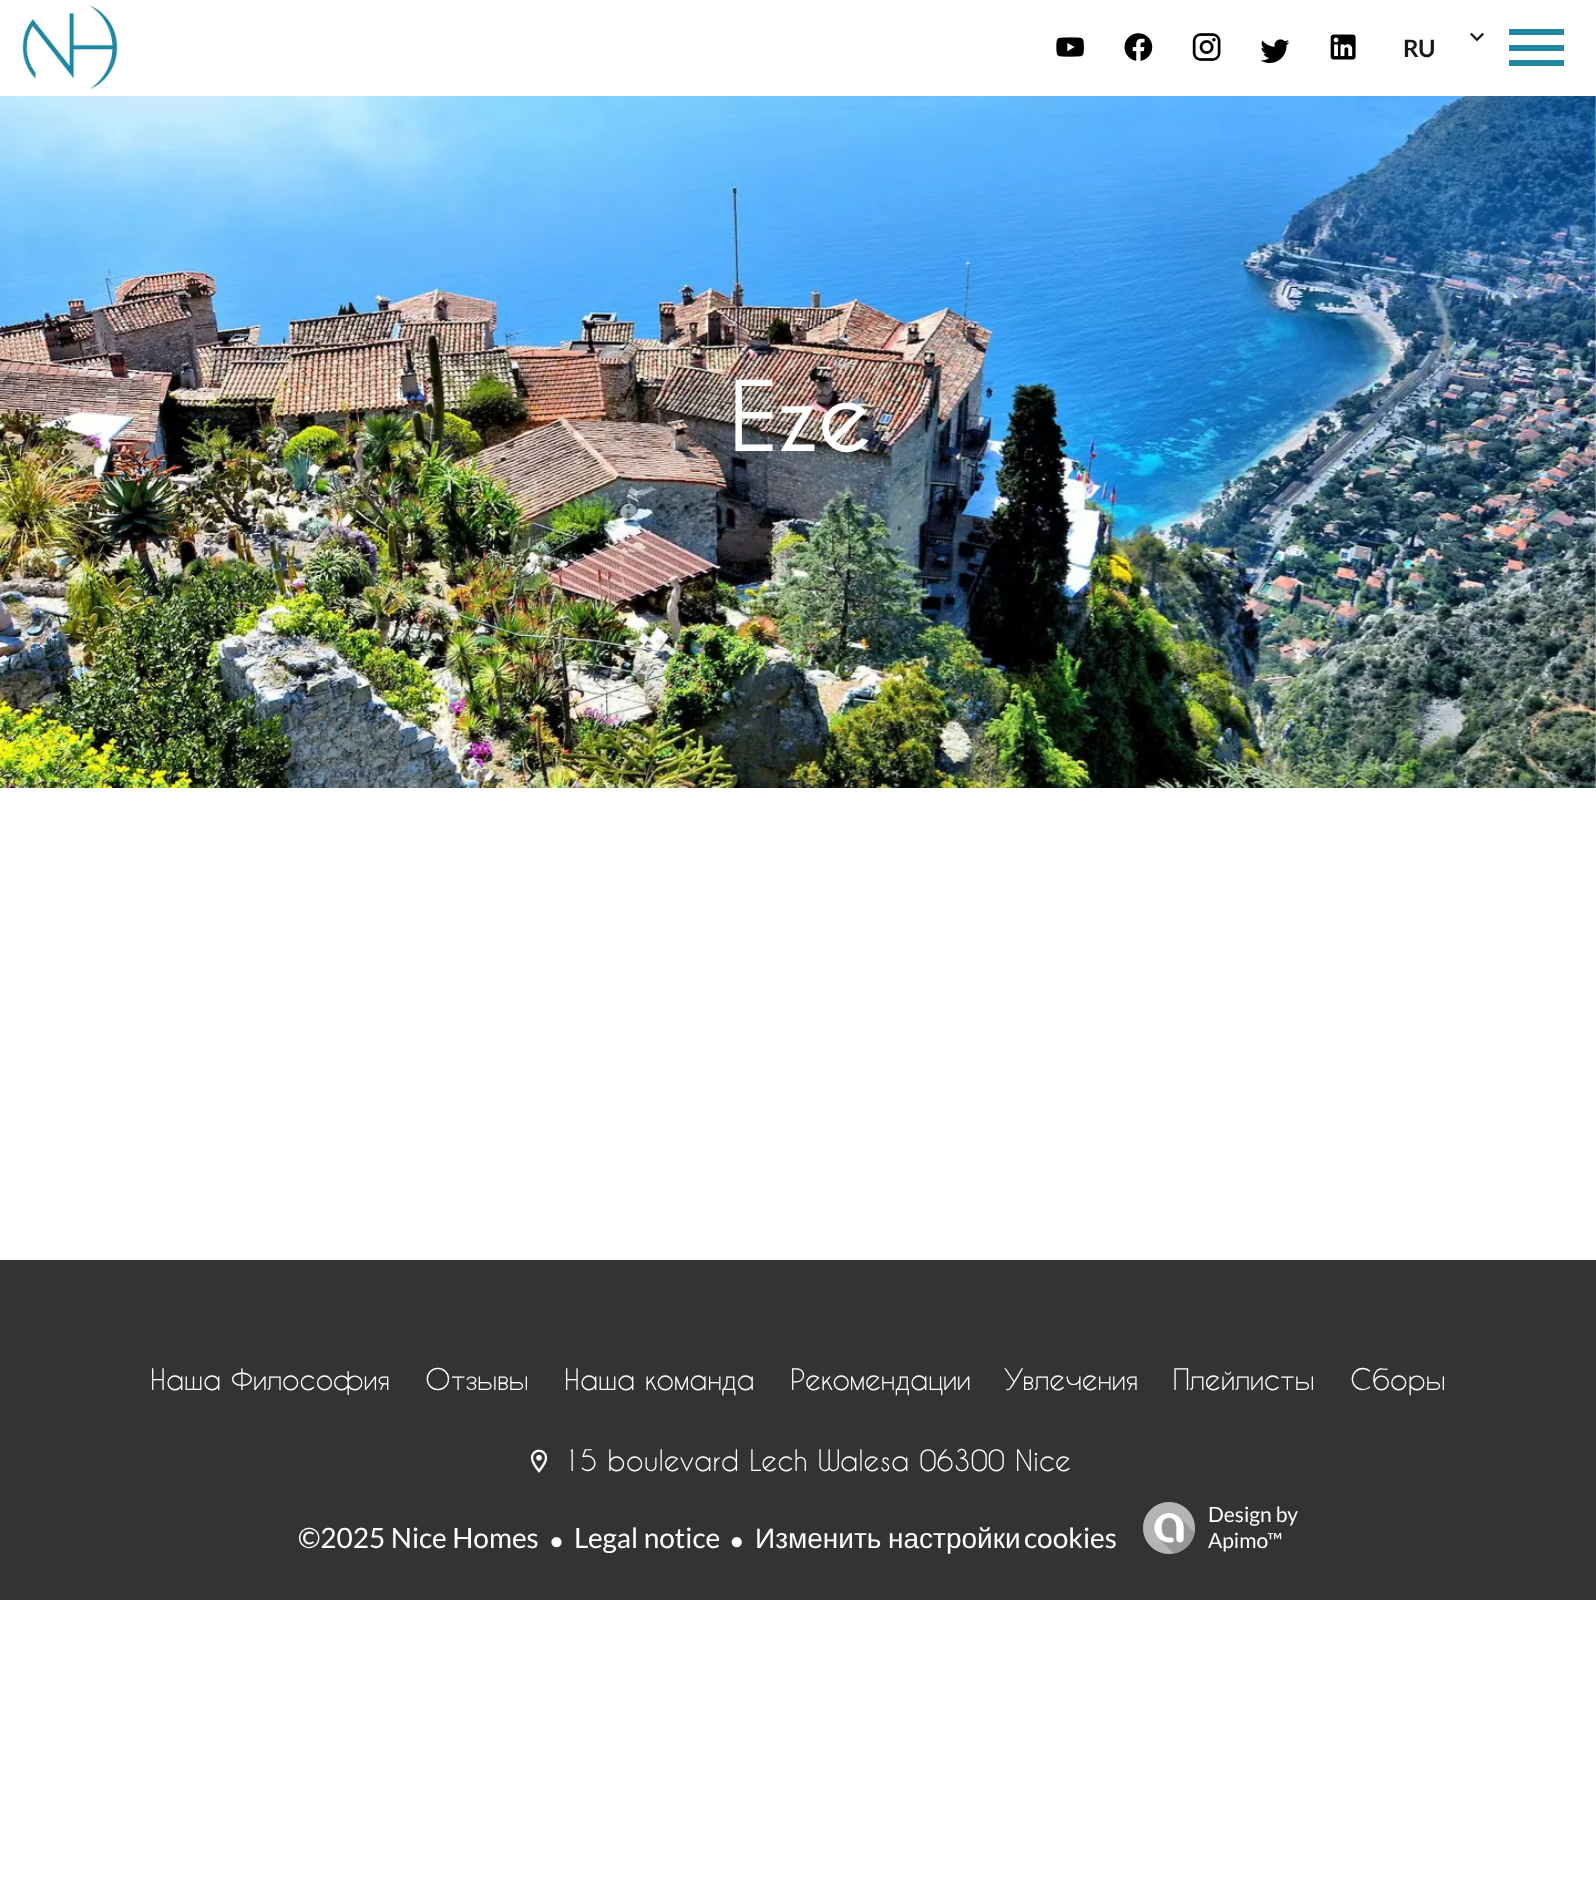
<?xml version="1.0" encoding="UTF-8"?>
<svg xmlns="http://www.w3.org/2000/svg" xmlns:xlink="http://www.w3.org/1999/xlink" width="1596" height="1892">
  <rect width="100%" height="100%" fill="#ffffff" />
  <image x="22" y="5" width="96" height="85" xlink:href="image1.png" />
  <image x="1056" y="37" width="28" height="20" xlink:href="image2.png" />
  <image x="1124" y="33" width="29" height="28" xlink:href="image3.png" />
  <image x="1192" y="33" width="29" height="28" xlink:href="image4.png" />
  <image x="1260" y="39" width="30" height="24" xlink:href="image5.png" />
  <image x="1330" y="34" width="26" height="26" xlink:href="image6.png" />
  <image x="1470" y="32" width="14" height="10" xlink:href="image7.png" />
  <path d="M 1509 29 h 55 v 6 h -55 z m 0 16 h 55 v 6 h -55 z m 0 15 h 55 v 6 h -55 z" fill="#2088a0" />
  <image x="0" y="96" width="1596" height="692" xlink:href="image8.png" />
  <rect y="1260" width="1596" height="340" fill="#333333" />
  <image x="530" y="1449" width="18" height="24" xlink:href="image9.png" />
  <image x="551" y="1537" width="11" height="11" xlink:href="image10.png" />
  <image x="731" y="1537" width="11" height="11" xlink:href="image11.png" />
  <image x="1143" y="1502" width="52" height="52" xlink:href="image12.png" />
  <text x="1403" y="57" style="font-family: Lato; font-size: 24px; font-weight: bold; fill: #191919">RU</text>
  <text x="729" y="451" style="font-family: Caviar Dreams; font-size: 88px; font-weight: bold; fill: #ffffff">Eze</text>
  <text x="150" y="1390" style="font-family: Caviar Dreams; font-size: 28px; fill: #ffffff">Наша Философия</text>
  <text x="425" y="1390" style="font-family: Caviar Dreams; font-size: 28px; fill: #ffffff">Отзывы</text>
  <text x="564" y="1390" style="font-family: Caviar Dreams; font-size: 28px; fill: #ffffff">Наша команда</text>
  <text x="790" y="1390" style="font-family: Caviar Dreams; font-size: 28px; fill: #ffffff">Рекомендации</text>
  <text x="1005" y="1390" style="font-family: Caviar Dreams; font-size: 28px; fill: #ffffff">Увлечения</text>
  <text x="1173" y="1390" style="font-family: Caviar Dreams; font-size: 28px; fill: #ffffff">Плейлисты</text>
  <text x="1350" y="1390" style="font-family: Caviar Dreams; font-size: 28px; fill: #ffffff">Сборы</text>
  <text x="563" y="1471" word-spacing="0.5" style="font-family: Caviar Dreams; font-size: 28px; fill: #ffffff">15 boulevard Lech Walesa 06300 Nice</text>
  <text x="298" y="1548" style="font-family: Lato; font-size: 28px; fill: #ffffff">©2025 Nice Homes</text>
  <text x="574" y="1548" style="font-family: Lato; font-size: 28px; fill: #ffffff">Legal notice</text>
  <text x="755" y="1548" word-spacing="-1" style="font-family: Liberation Sans; font-size: 28px; fill: #ffffff">Изменить настройки</text>
  <text x="1024" y="1548" style="font-family: Lato; font-size: 28px; fill: #ffffff">cookies</text>
  <text x="1208" y="1522" style="font-family: Lato; font-size: 21px; fill: #ffffff">Design by</text>
  <text x="1208" y="1548" style="font-family: Lato; font-size: 21px; fill: #ffffff">Apimo™</text>
</svg>
